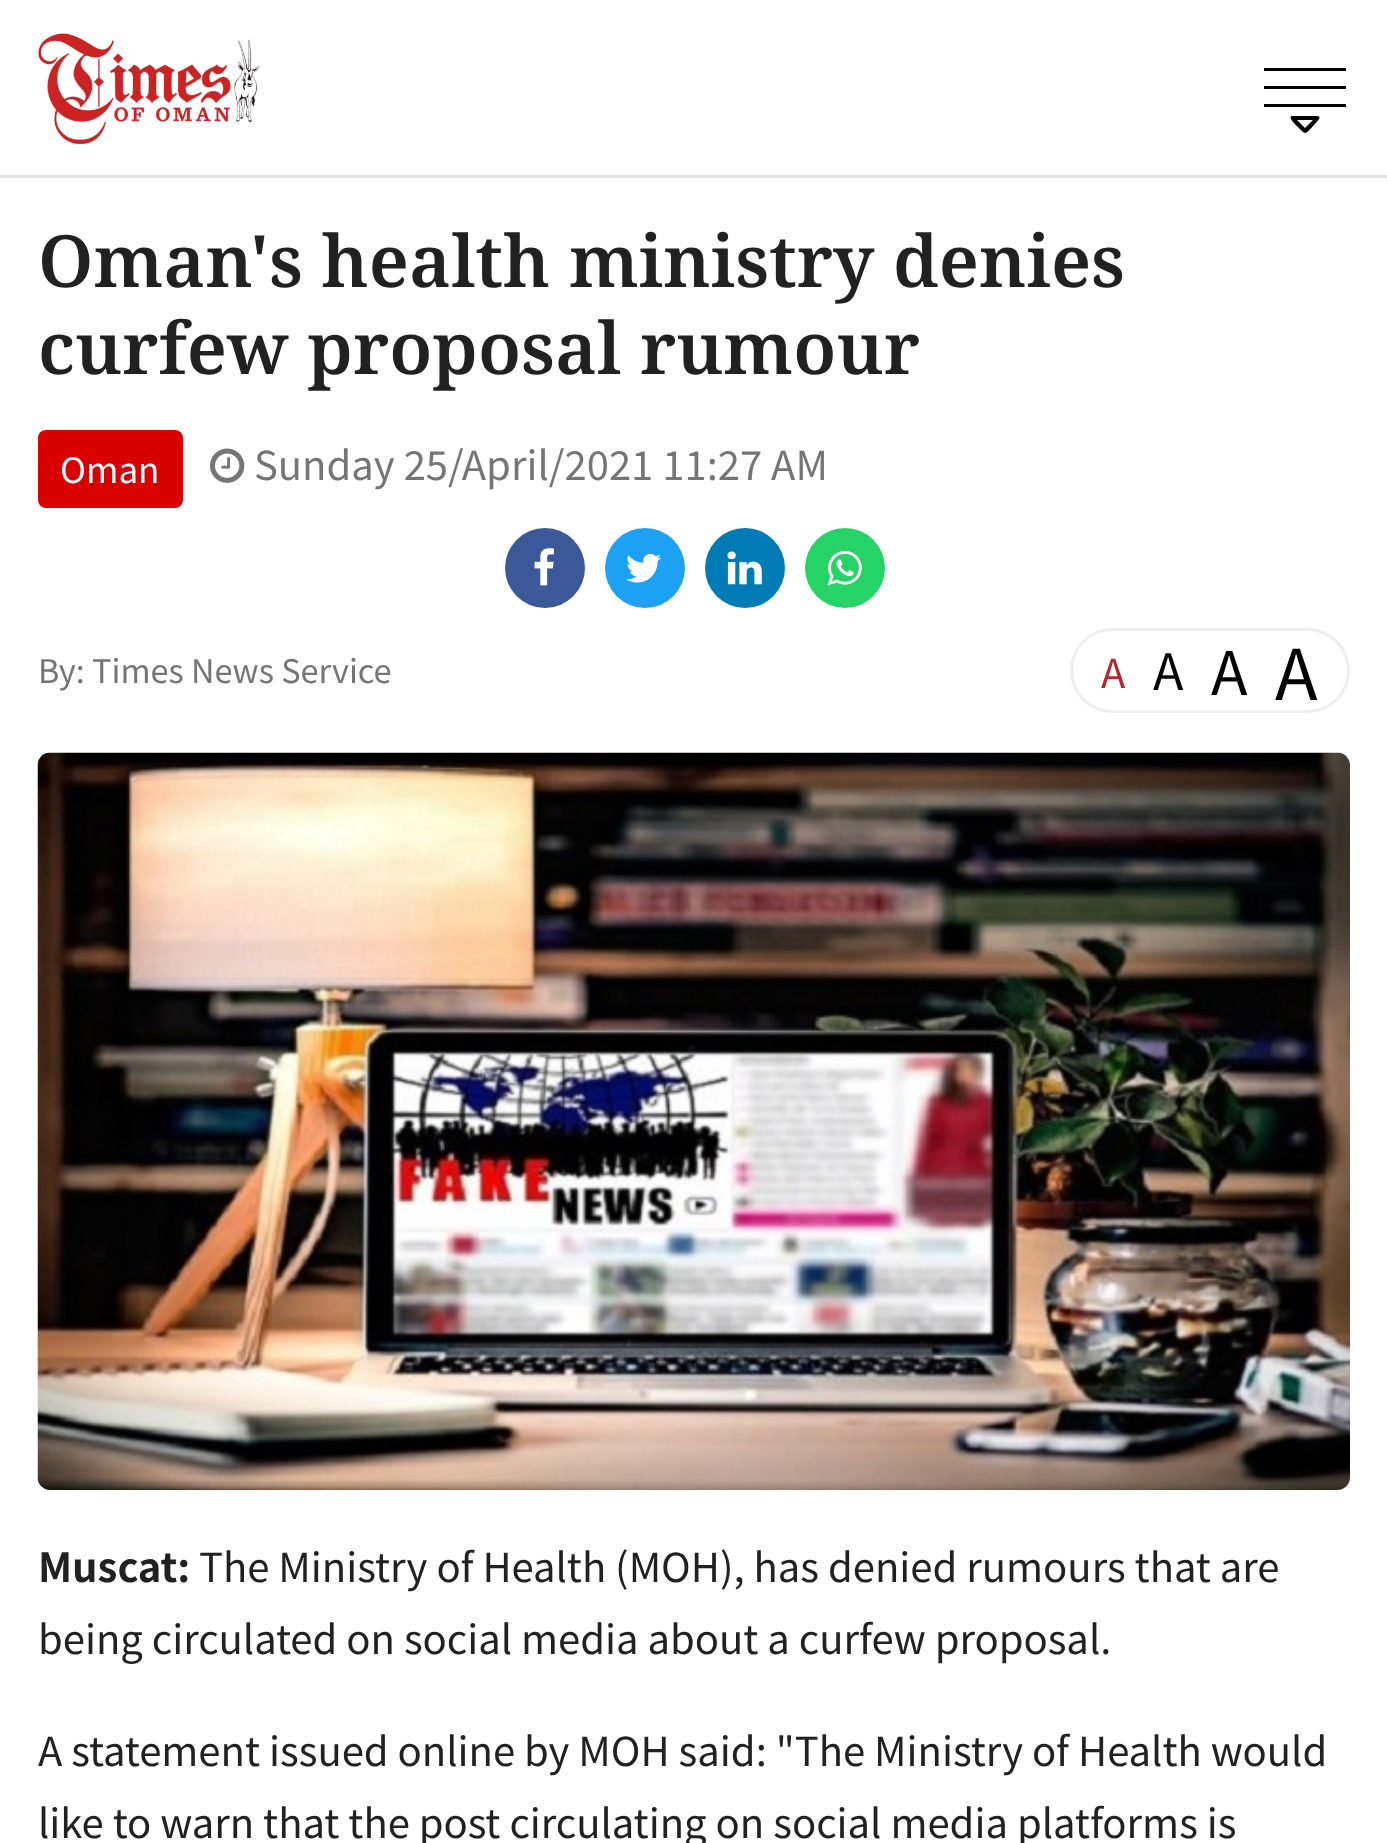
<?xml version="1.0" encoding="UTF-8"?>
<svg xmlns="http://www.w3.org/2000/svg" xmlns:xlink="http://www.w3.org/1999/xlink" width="1387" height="1843">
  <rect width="100%" height="100%" fill="#ffffff" />
  <image x="38" y="33" width="222" height="112" xlink:href="image1.png" />
  <path d="M 1264 68 v 3 h 82 v -3 z m 0 18 v 3 h 82 v -3 z m 0 18 v 3 h 82 v -3 z m 28 12 c -5 1 5 10 5 10 c 10 10 7 9 18 -2 c 8 -9 5 -8 -6 -8 z m 5 4 h 16 l -8 8 z" fill="#000000" />
  <rect y="175" width="1387" height="3" fill="#e0e0e0" />
  <rect x="38" y="430" width="145" height="78" rx="8" fill="#d90000" />
  <image x="210" y="448" width="35" height="35" xlink:href="image2.png" />
  <circle cx="545" cy="568" r="40" fill="#3b5999" />
  <image x="534" y="548" width="20" height="38" xlink:href="image3.png" />
  <circle cx="645" cy="568" r="40" fill="#1da1f2" />
  <image x="626" y="553" width="35" height="30" xlink:href="image4.png" />
  <circle cx="745" cy="568" r="40" fill="#007bb5" />
  <image x="727" y="551" width="35" height="34" xlink:href="image5.png" />
  <circle cx="845" cy="568" r="40" fill="#25d366" />
  <image x="827" y="550" width="35" height="36" xlink:href="image6.png" />
  <rect x="1071.5" y="629.5" width="277" height="82" rx="41" fill="none" stroke="#eeeeee" stroke-width="3" />
  <image x="37" y="752" width="1313" height="738" xlink:href="image7.png" />
  <text x="38" y="287" style="font-family: Noto Serif; font-size: 72px; font-weight: 600; fill: #212121">Oman's health ministry denies</text>
  <text x="38" y="374" style="font-family: Noto Serif; font-size: 72px; font-weight: 600; fill: #212121">curfew proposal rumour</text>
  <text x="60" y="483" style="font-family: Noto Sans JP; font-size: 35px; fill: #ffffff">Oman</text>
  <text x="254" y="480" style="font-family: Noto Sans JP; font-size: 40px; fill: #757575">Sunday 25/April/2021 11:27 AM</text>
  <text x="38" y="683" style="font-family: Noto Sans JP; font-size: 32.5px; fill: #757575">By: Times News Service</text>
  <text x="1101" y="688" style="font-family: Noto Sans JP; font-size: 40px; fill: #b5272d">A</text>
  <text x="1153" y="690" style="font-family: Noto Sans JP; font-size: 50px; fill: #000000">A</text>
  <text x="1211" y="695" style="font-family: Noto Sans JP; font-size: 60px; fill: #000000">A</text>
  <text x="1275" y="700" style="font-family: Noto Sans JP; font-size: 70px; fill: #000000">A</text>
  <text x="38" y="1582" style="font-family: Noto Sans JP; font-size: 40px; font-weight: bold; fill: #212121">Muscat:</text>
  <text x="199" y="1582" style="font-family: Noto Sans JP; font-size: 40px; fill: #212121">The Ministry of Health (MOH), has denied rumours that are</text>
  <text x="38" y="1654" style="font-family: Noto Sans JP; font-size: 40px; fill: #212121">being circulated on social media about a curfew proposal.</text>
  <text x="38" y="1766" style="font-family: Noto Sans JP; font-size: 40px; fill: #212121">A statement issued online by MOH said: "The Ministry of Health would</text>
  <text x="38" y="1838" style="font-family: Noto Sans JP; font-size: 40px; fill: #212121">like to warn that the post circulating on social media platforms is</text>
</svg>
